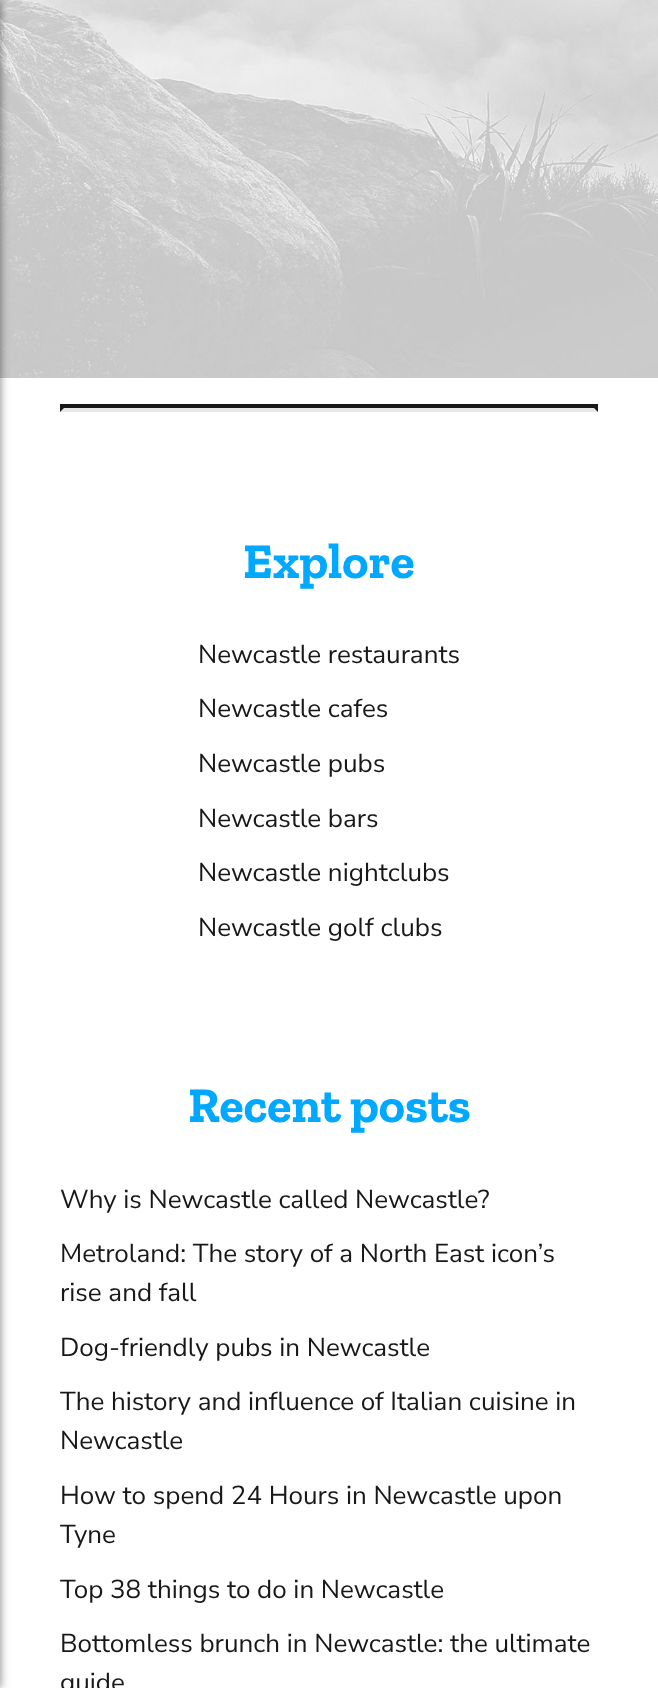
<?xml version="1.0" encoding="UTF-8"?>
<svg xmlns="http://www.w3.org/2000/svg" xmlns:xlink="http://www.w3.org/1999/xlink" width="658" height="1688">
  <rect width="100%" height="100%" fill="#ffffff" />
  <image x="0" y="0" width="658" height="378" xlink:href="image1.png" />
  <rect x="-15" width="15" height="1688" fill="#000000" fill-opacity="0.5" filter="blur(5px)" />
  <rect x="60" y="404" width="538" height="4" fill="#181818" />
  <path d="M 598 404 v 8 l -4 -4 z" fill="#181818" />
  <path d="M 598 412 h -538 l 4 -4 h 530 z" fill="#181818" fill-opacity="0.1" />
  <path d="M 60 412 v -8 l 4 4 z" fill="#181818" />
  <text x="243" y="578" style="font-family: Zilla Slab; font-size: 50px; font-weight: bold; fill: #00a9ff">Explore</text>
  <text x="198" y="663" style="font-family: Nunito Sans; font-size: 26px; fill: #181818">Newcastle restaurants</text>
  <text x="198" y="717" style="font-family: Nunito Sans; font-size: 26px; fill: #181818">Newcastle cafes</text>
  <text x="198" y="772" style="font-family: Nunito Sans; font-size: 26px; fill: #181818">Newcastle pubs</text>
  <text x="198" y="827" style="font-family: Nunito Sans; font-size: 26px; fill: #181818">Newcastle bars</text>
  <text x="198" y="881" style="font-family: Nunito Sans; font-size: 26px; fill: #181818">Newcastle nightclubs</text>
  <text x="198" y="936" style="font-family: Nunito Sans; font-size: 26px; fill: #181818">Newcastle golf clubs</text>
  <text x="188" y="1122" style="font-family: Zilla Slab; font-size: 50px; font-weight: bold; fill: #00a9ff">Recent posts</text>
  <text x="60" y="1208" style="font-family: Nunito Sans; font-size: 26px; fill: #181818">Why is Newcastle called Newcastle?</text>
  <text x="60" y="1262" style="font-family: Nunito Sans; font-size: 26px; fill: #181818">Metroland: The story of a North East icon’s</text>
  <text x="60" y="1301" style="font-family: Nunito Sans; font-size: 26px; fill: #181818">rise and fall</text>
  <text x="60" y="1356" style="font-family: Nunito Sans; font-size: 26px; fill: #181818">Dog-friendly pubs in Newcastle</text>
  <text x="60" y="1410" style="font-family: Nunito Sans; font-size: 26px; fill: #181818">The history and influence of Italian cuisine in</text>
  <text x="60" y="1449" style="font-family: Nunito Sans; font-size: 26px; fill: #181818">Newcastle</text>
  <text x="60" y="1504" style="font-family: Nunito Sans; font-size: 26px; fill: #181818">How to spend 24 Hours in Newcastle upon</text>
  <text x="60" y="1543" style="font-family: Nunito Sans; font-size: 26px; fill: #181818">Tyne</text>
  <text x="60" y="1598" style="font-family: Nunito Sans; font-size: 26px; fill: #181818">Top 38 things to do in Newcastle</text>
  <text x="60" y="1652" style="font-family: Nunito Sans; font-size: 26px; fill: #181818">Bottomless brunch in Newcastle: the ultimate</text>
  <text x="60" y="1691" style="font-family: Nunito Sans; font-size: 26px; fill: #181818">guide</text>
</svg>
